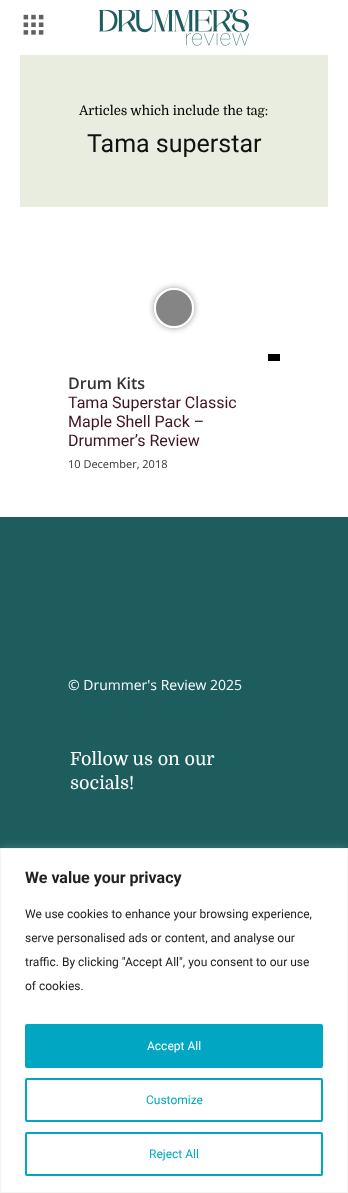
<?xml version="1.0" encoding="UTF-8"?>
<svg xmlns="http://www.w3.org/2000/svg" xmlns:xlink="http://www.w3.org/1999/xlink" width="348" height="1193">
  <defs>
    <clipPath id="clip1"><path d="M 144 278 h 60 v 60 h -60 z m 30 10 c 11 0 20 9 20 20 c 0 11 -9 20 -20 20 c -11 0 -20 -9 -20 -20 c 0 -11 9 -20 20 -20 z" clip-rule="evenodd" /></clipPath>
  </defs>
  <rect width="100%" height="100%" fill="#ffffff" />
  <image x="23" y="14" width="21" height="21" xlink:href="image1.png" />
  <image x="99" y="9" width="150" height="37" xlink:href="image2.png" />
  <rect x="20" y="55" width="308" height="152" fill="#e8eddf" />
  <g clip-path="url(#clip1)">
    <rect x="154" y="288" width="40" height="40" rx="20" fill="#000000" fill-opacity="0.4" filter="blur(3px)" />
  </g>
  <circle cx="174" cy="308" r="19" fill="#000000" fill-opacity="0.48" stroke="#ffffff" stroke-width="2" />
  <rect x="268" y="354" width="12" height="7" fill="#000000" />
  <rect y="517" width="348" height="331" fill="#1d5d5e" />
  <rect y="847" width="348" height="345" fill="#acabab" fill-opacity="0.3" filter="blur(5px)" />
  <rect x="0.5" y="848.5" width="347" height="344" fill="#ffffff" stroke="#f4f4f4" />
  <rect x="26" y="1025" width="296" height="42" rx="1" fill="#01a7c2" stroke="#01a7c2" stroke-width="2" />
  <rect x="26" y="1079" width="296" height="42" rx="1" fill="none" stroke="#01a7c2" stroke-width="2" />
  <rect x="26" y="1133" width="296" height="42" rx="1" fill="none" stroke="#01a7c2" stroke-width="2" />
  <text x="79" y="115" style="font-family: Domine; font-size: 13px; fill: #000000">Articles which include the tag:</text>
  <text x="87" y="152" style="font-family: Roboto; font-size: 25px; fill: #111111">Tama superstar</text>
  <text x="68" y="389" style="font-family: Open Sans; font-size: 16px; font-weight: 600; fill: #333333">Drum Kits</text>
  <text x="68" y="408" style="font-family: Roboto; font-size: 16px; fill: #3e1322">Tama Superstar Classic</text>
  <text x="68" y="427" style="font-family: Roboto; font-size: 16px; fill: #3e1322">Maple Shell Pack –</text>
  <text x="68" y="446" style="font-family: Roboto; font-size: 16px; fill: #3e1322">Drummer’s Review</text>
  <text x="68" y="468" style="font-family: Open Sans; font-size: 11px; fill: #333333">10 December, 2018</text>
  <text x="68" y="690" style="font-family: Open Sans; font-size: 14px; fill: #ffffff">© Drummer's Review 2025</text>
  <text x="70" y="765" style="font-family: Domine; font-size: 18px; fill: #ffffff">Follow us on our</text>
  <text x="70" y="789" style="font-family: Domine; font-size: 18px; fill: #ffffff">socials!</text>
  <text x="25" y="883" style="font-family: Roboto; font-size: 16px; font-weight: bold; fill: #212121">We value your privacy</text>
  <text x="25" y="918" style="font-family: Roboto; font-size: 12px; fill: #212121">We use cookies to enhance your browsing experience,</text>
  <text x="25" y="942" style="font-family: Roboto; font-size: 12px; fill: #212121">serve personalised ads or content, and analyse our</text>
  <text x="25" y="966" style="font-family: Roboto; font-size: 12px; fill: #212121">traffic. By clicking "Accept All", you consent to our use</text>
  <text x="25" y="990" style="font-family: Roboto; font-size: 12px; fill: #212121">of cookies.</text>
  <text x="147" y="1050" style="font-family: Roboto; font-size: 12px; fill: #ffffff">Accept All</text>
  <text x="146" y="1104" style="font-family: Roboto; font-size: 12px; fill: #01a7c2">Customize</text>
  <text x="149" y="1158" style="font-family: Roboto; font-size: 12px; fill: #01a7c2">Reject All</text>
</svg>
